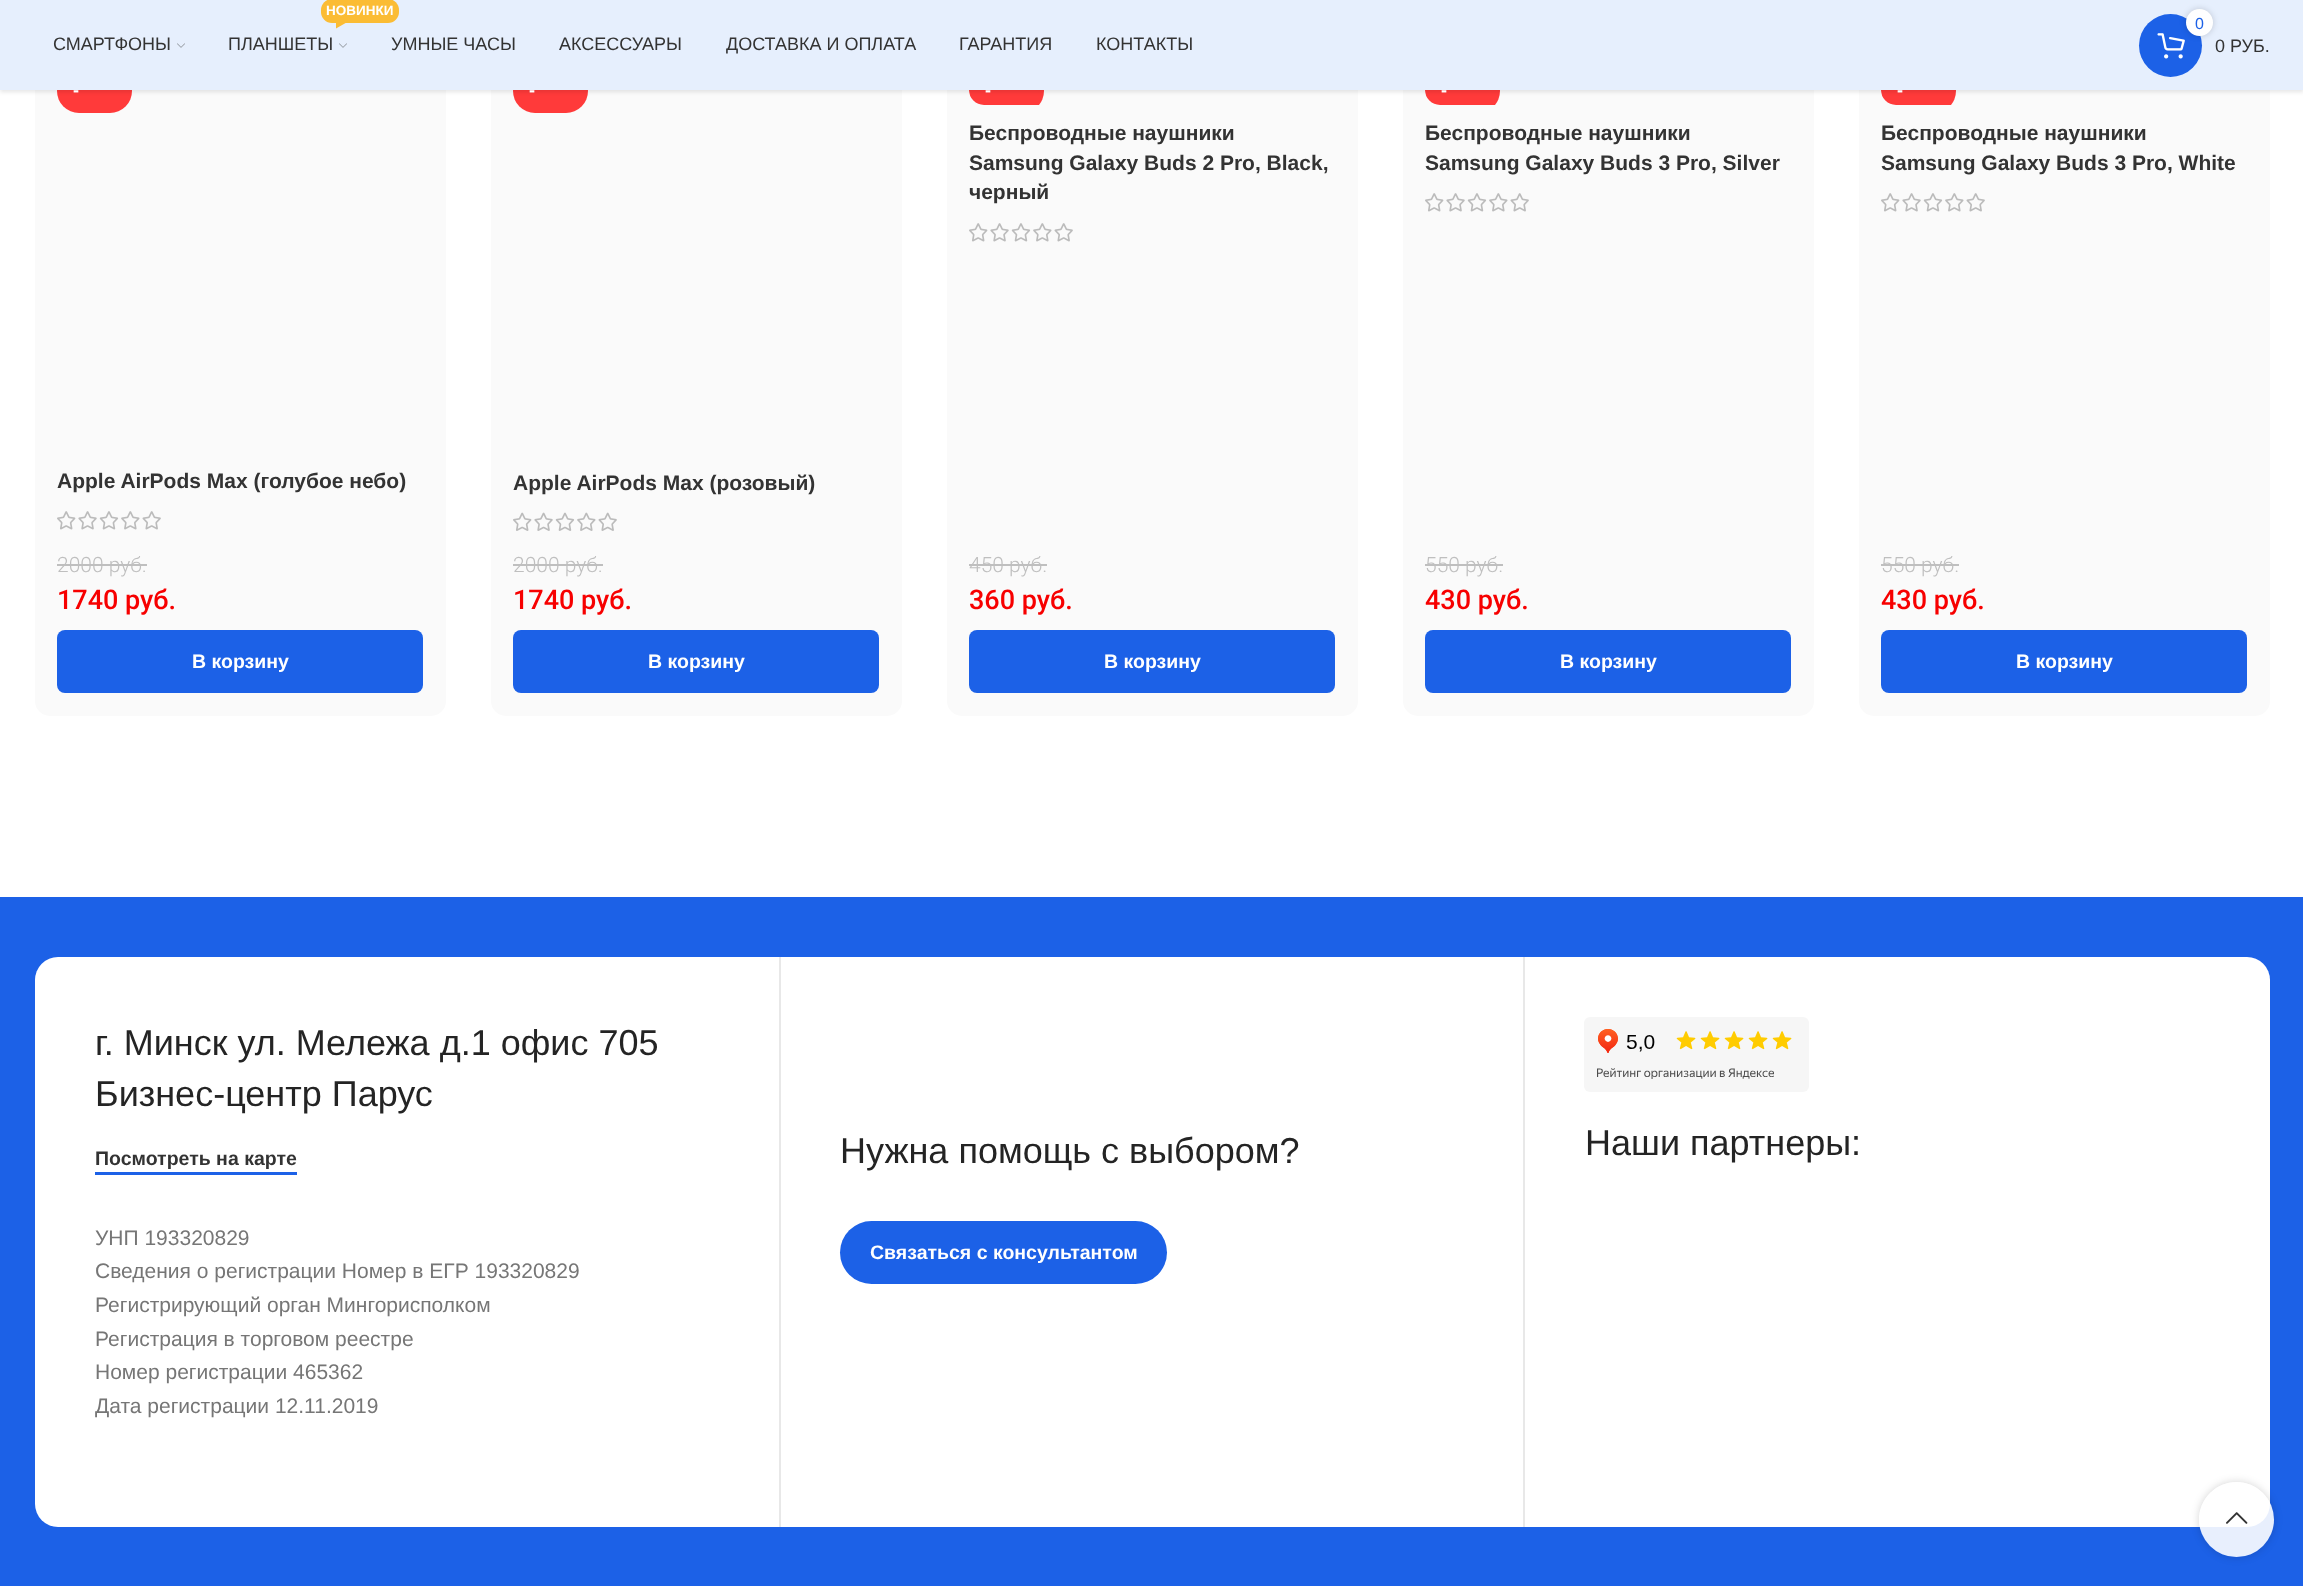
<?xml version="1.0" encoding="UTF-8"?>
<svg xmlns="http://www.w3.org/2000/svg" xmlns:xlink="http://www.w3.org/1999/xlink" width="2303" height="1586">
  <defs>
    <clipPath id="clip1"><rect x="969" y="47" width="366" height="58" rx="15" /></clipPath>
    <clipPath id="clip2"><rect x="1425" y="47" width="366" height="58" rx="15" /></clipPath>
    <clipPath id="clip3"><rect x="1881" y="47" width="366" height="58" rx="15" /></clipPath>
    <clipPath id="clip4"><path d="M 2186 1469 h 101 v 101 h -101 z m 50.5 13 c 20.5 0 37.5 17 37.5 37.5 c 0 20.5 -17 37.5 -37.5 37.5 c -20.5 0 -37.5 -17 -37.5 -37.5 c 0 -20.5 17 -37.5 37.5 -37.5 z" clip-rule="evenodd" /></clipPath>
  </defs>
  <rect width="100%" height="100%" fill="#ffffff" />
  <rect x="35" y="24" width="411" height="692" rx="15" fill="#fafafa" />
  <rect x="57" y="69" width="75" height="44" rx="22" fill="#ff3a3a" />
  <rect x="491" y="24" width="411" height="692" rx="15" fill="#fafafa" />
  <rect x="513" y="69" width="75" height="44" rx="22" fill="#ff3a3a" />
  <rect x="947" y="24" width="411" height="692" rx="15" fill="#fafafa" />
  <g clip-path="url(#clip1)">
    <rect x="969" y="69" width="75" height="44" rx="22" fill="#ff3a3a" />
  </g>
  <rect x="1403" y="24" width="411" height="692" rx="15" fill="#fafafa" />
  <g clip-path="url(#clip2)">
    <rect x="1425" y="69" width="75" height="44" rx="22" fill="#ff3a3a" />
  </g>
  <rect x="1859" y="24" width="411" height="692" rx="15" fill="#fafafa" />
  <g clip-path="url(#clip3)">
    <rect x="1881" y="69" width="75" height="44" rx="22" fill="#ff3a3a" />
  </g>
  <rect y="2" width="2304" height="90" fill="#000000" fill-opacity="0.1" filter="blur(2px)" />
  <rect width="2303" height="90" fill="#e6effd" />
  <image x="177" y="43" width="8" height="5" xlink:href="image1.png" />
  <rect x="321" y="-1" width="78" height="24" rx="11" fill="#fbbc34" />
  <path d="M 336 22.5 h 10.5 l -10.5 6 z" fill="#fbbc34" />
  <image x="339" y="43" width="8" height="5" xlink:href="image1.png" />
  <circle cx="2170.5" cy="45.5" r="31.5" fill="#1c61e7" />
  <image x="2157" y="33" width="28" height="26" xlink:href="image2.png" />
  <rect x="2186" y="9" width="27" height="27" rx="13.5" fill="#000000" fill-opacity="0.17" filter="blur(3px)" />
  <circle cx="2199.5" cy="22.5" r="13.5" fill="#ffffff" />
  <image x="57" y="511" width="104" height="19" xlink:href="image3.png" />
  <rect x="57" y="564" width="90" height="2" fill="#bfbfbf" />
  <rect x="57" y="630" width="366" height="63" rx="8" fill="#1c61e7" />
  <image x="513" y="512" width="104" height="19" xlink:href="image4.png" />
  <rect x="513" y="564" width="90" height="2" fill="#bfbfbf" />
  <rect x="513" y="630" width="366" height="63" rx="8" fill="#1c61e7" />
  <image x="969" y="223" width="104" height="19" xlink:href="image3.png" />
  <rect x="969" y="564" width="78" height="2" fill="#bfbfbf" />
  <rect x="969" y="630" width="366" height="63" rx="8" fill="#1c61e7" />
  <image x="1425" y="193" width="104" height="19" xlink:href="image3.png" />
  <rect x="1425" y="564" width="78" height="2" fill="#bfbfbf" />
  <rect x="1425" y="630" width="366" height="63" rx="8" fill="#1c61e7" />
  <image x="1881" y="193" width="104" height="19" xlink:href="image3.png" />
  <rect x="1881" y="564" width="78" height="2" fill="#bfbfbf" />
  <rect x="1881" y="630" width="366" height="63" rx="8" fill="#1c61e7" />
  <rect y="897" width="2303" height="689" fill="#1c61e7" />
  <rect x="35" y="957" width="2235" height="570" rx="23" fill="#ffffff" />
  <rect x="779" y="957" width="2" height="570" fill="#e8e8e8" />
  <rect x="95" y="1172" width="202" height="3" fill="#1c61e7" />
  <rect x="1523" y="957" width="2" height="570" fill="#e8e8e8" />
  <rect x="840" y="1221" width="327" height="63" rx="31.5" fill="#1c61e7" />
  <image x="1584" y="1017" width="225" height="75" xlink:href="image5.png" />
  <g clip-path="url(#clip4)">
    <rect x="2199" y="1482" width="75" height="75" rx="37.5" fill="#000000" fill-opacity="0.17" filter="blur(4px)" />
  </g>
  <circle cx="2236.5" cy="1519.5" r="37.5" fill="#ffffff" fill-opacity="0.9" />
  <image x="2226" y="1512" width="22" height="12" xlink:href="image6.png" />
  <text x="53" y="50" style="font-family: Liberation Sans; font-size: 18px; fill: #333333">СМАРТФОНЫ</text>
  <text x="326" y="15" style="font-family: Liberation Sans; font-size: 13.5px; font-weight: bold; fill: #ffffff">НОВИНКИ</text>
  <text x="228" y="50" style="font-family: Liberation Sans; font-size: 18px; fill: #333333">ПЛАНШЕТЫ</text>
  <text x="391" y="50" style="font-family: Liberation Sans; font-size: 18px; fill: #333333">УМНЫЕ ЧАСЫ</text>
  <text x="559" y="50" style="font-family: Liberation Sans; font-size: 18px; fill: #333333">АКСЕССУАРЫ</text>
  <text x="726" y="50" style="font-family: Liberation Sans; font-size: 18px; fill: #333333">ДОСТАВКА И ОПЛАТА</text>
  <text x="959" y="50" style="font-family: Liberation Sans; font-size: 18px; fill: #333333">ГАРАНТИЯ</text>
  <text x="1096" y="50" style="font-family: Liberation Sans; font-size: 18px; fill: #333333">КОНТАКТЫ</text>
  <text x="2195" y="29" style="font-family: Liberation Sans; font-size: 16px; fill: #1c61e7">0</text>
  <text x="2215" y="52" style="font-family: Liberation Sans; font-size: 18px; fill: #333333">0 РУБ.</text>
  <text x="73" y="96" style="font-family: Liberation Sans; font-size: 18px; font-weight: bold; fill: #ffffff">-</text>
  <text x="57" y="488" style="font-family: Liberation Sans; font-size: 21px; font-weight: bold; fill: #333333">Apple AirPods Max (голубое небо)</text>
  <text x="57" y="572" style="font-family: Roboto; font-size: 21px; font-weight: 300; fill: #bfbfbf">2000 руб.</text>
  <text x="57" y="609" style="font-family: Roboto; font-size: 27px; font-weight: 500; fill: #f70000">1740 руб.</text>
  <text x="192" y="668" style="font-family: Liberation Sans; font-size: 19.5px; font-weight: bold; fill: #ffffff">В корзину</text>
  <text x="529" y="96" style="font-family: Liberation Sans; font-size: 18px; font-weight: bold; fill: #ffffff">-</text>
  <text x="513" y="490" style="font-family: Liberation Sans; font-size: 21px; font-weight: bold; fill: #333333">Apple AirPods Max (розовый)</text>
  <text x="513" y="572" style="font-family: Roboto; font-size: 21px; font-weight: 300; fill: #bfbfbf">2000 руб.</text>
  <text x="513" y="609" style="font-family: Roboto; font-size: 27px; font-weight: 500; fill: #f70000">1740 руб.</text>
  <text x="648" y="668" style="font-family: Liberation Sans; font-size: 19.5px; font-weight: bold; fill: #ffffff">В корзину</text>
  <text x="985" y="96" style="font-family: Liberation Sans; font-size: 18px; font-weight: bold; fill: #ffffff">-</text>
  <text x="969" y="140" style="font-family: Liberation Sans; font-size: 21px; font-weight: bold; fill: #333333">Беспроводные наушники</text>
  <text x="969" y="170" style="font-family: Liberation Sans; font-size: 21px; font-weight: bold; fill: #333333">Samsung Galaxy Buds 2 Pro, Black,</text>
  <text x="969" y="199" style="font-family: Liberation Sans; font-size: 21px; font-weight: bold; fill: #333333">черный</text>
  <text x="969" y="572" style="font-family: Roboto; font-size: 21px; font-weight: 300; fill: #bfbfbf">450 руб.</text>
  <text x="969" y="609" style="font-family: Roboto; font-size: 27px; font-weight: 500; fill: #f70000">360 руб.</text>
  <text x="1104" y="668" style="font-family: Liberation Sans; font-size: 19.5px; font-weight: bold; fill: #ffffff">В корзину</text>
  <text x="1441" y="96" style="font-family: Liberation Sans; font-size: 18px; font-weight: bold; fill: #ffffff">-</text>
  <text x="1425" y="140" style="font-family: Liberation Sans; font-size: 21px; font-weight: bold; fill: #333333">Беспроводные наушники</text>
  <text x="1425" y="170" style="font-family: Liberation Sans; font-size: 21px; font-weight: bold; fill: #333333">Samsung Galaxy Buds 3 Pro, Silver</text>
  <text x="1425" y="572" style="font-family: Roboto; font-size: 21px; font-weight: 300; fill: #bfbfbf">550 руб.</text>
  <text x="1425" y="609" style="font-family: Roboto; font-size: 27px; font-weight: 500; fill: #f70000">430 руб.</text>
  <text x="1560" y="668" style="font-family: Liberation Sans; font-size: 19.5px; font-weight: bold; fill: #ffffff">В корзину</text>
  <text x="1897" y="96" style="font-family: Liberation Sans; font-size: 18px; font-weight: bold; fill: #ffffff">-</text>
  <text x="1881" y="140" style="font-family: Liberation Sans; font-size: 21px; font-weight: bold; fill: #333333">Беспроводные наушники</text>
  <text x="1881" y="170" style="font-family: Liberation Sans; font-size: 21px; font-weight: bold; fill: #333333">Samsung Galaxy Buds 3 Pro, White</text>
  <text x="1881" y="572" style="font-family: Roboto; font-size: 21px; font-weight: 300; fill: #bfbfbf">550 руб.</text>
  <text x="1881" y="609" style="font-family: Roboto; font-size: 27px; font-weight: 500; fill: #f70000">430 руб.</text>
  <text x="2016" y="668" style="font-family: Liberation Sans; font-size: 19.5px; font-weight: bold; fill: #ffffff">В корзину</text>
  <text x="95" y="1055" style="font-family: Liberation Sans; font-size: 36px; fill: #242424">г. Минск ул. Мележа д.1 офис 705</text>
  <text x="95" y="1106" style="font-family: Liberation Sans; font-size: 36px; fill: #242424">Бизнес-центр Парус</text>
  <text x="95" y="1165" style="font-family: Liberation Sans; font-size: 19.5px; font-weight: bold; fill: #333333">Посмотреть на карте</text>
  <text x="95" y="1245" style="font-family: Liberation Sans; font-size: 21px; fill: #767676">УНП 193320829</text>
  <text x="95" y="1278" style="font-family: Liberation Sans; font-size: 21px; fill: #767676">Сведения о регистрации Номер в ЕГР 193320829</text>
  <text x="95" y="1312" style="font-family: Liberation Sans; font-size: 21px; fill: #767676">Регистрирующий орган Мингорисполком</text>
  <text x="95" y="1346" style="font-family: Liberation Sans; font-size: 21px; fill: #767676">Регистрация в торговом реестре</text>
  <text x="95" y="1379" style="font-family: Liberation Sans; font-size: 21px; fill: #767676">Номер регистрации 465362</text>
  <text x="95" y="1413" style="font-family: Liberation Sans; font-size: 21px; fill: #767676">Дата регистрации 12.11.2019</text>
  <text x="840" y="1163" style="font-family: Liberation Sans; font-size: 36px; fill: #242424">Нужна помощь с выбором?</text>
  <text x="870" y="1259" style="font-family: Liberation Sans; font-size: 19.5px; font-weight: bold; fill: #ffffff">Связаться с консультантом</text>
  <text x="1585" y="1155" style="font-family: Liberation Sans; font-size: 36px; fill: #242424">Наши партнеры:</text>
</svg>
